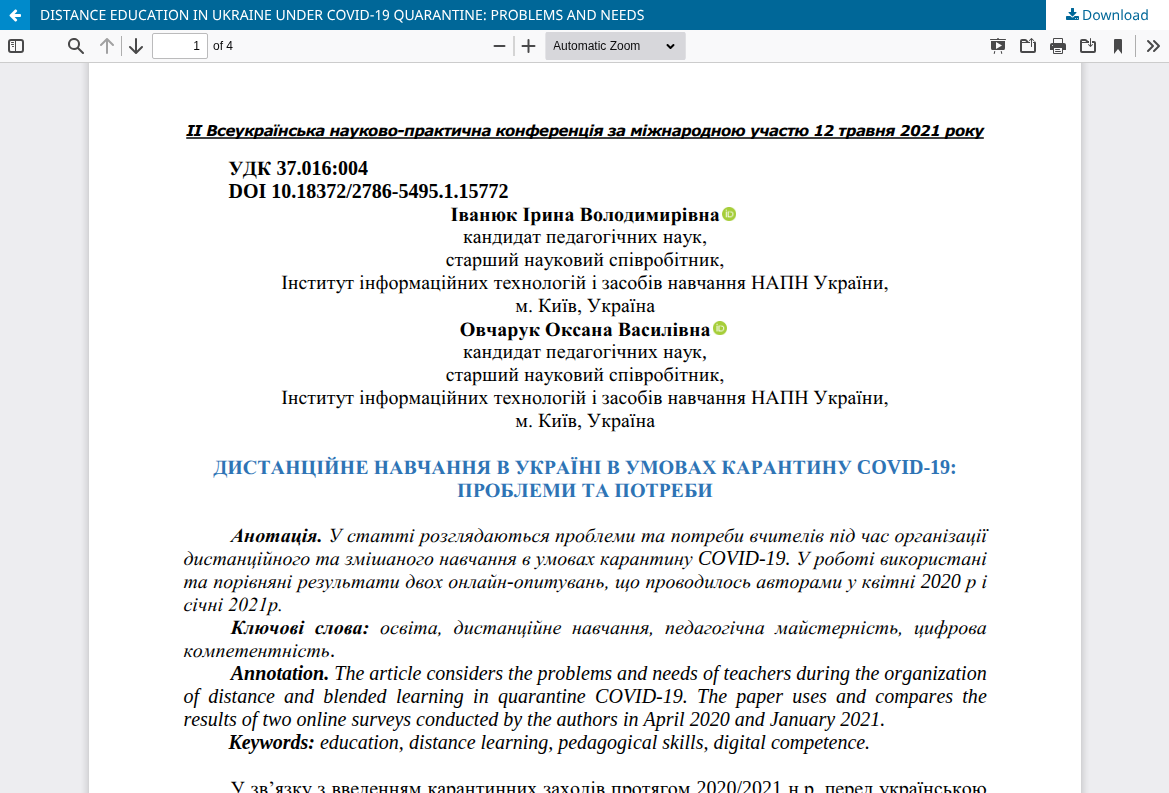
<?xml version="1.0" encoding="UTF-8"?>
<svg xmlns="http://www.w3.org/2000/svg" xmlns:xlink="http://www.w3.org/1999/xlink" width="1169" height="793">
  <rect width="100%" height="100%" fill="#ffffff" />
  <rect x="30" width="1016" height="30" fill="#006798" />
  <rect width="30" height="30" fill="#008acb" />
  <image x="9" y="9" width="12" height="13" xlink:href="image1.png" />
  <image x="1066" y="8" width="13" height="12" xlink:href="image2.png" />
  <image x="0" y="30" width="1169" height="763" xlink:href="image3.png" />
  <text x="40" y="20" style="font-family: Noto Sans; font-size: 14px; fill: #ffffff">DISTANCE EDUCATION IN UKRAINE UNDER COVID-19 QUARANTINE: PROBLEMS AND NEEDS</text>
  <text x="1082" y="20" style="font-family: Noto Sans; font-size: 14px; fill: #006798">Download</text>
</svg>
